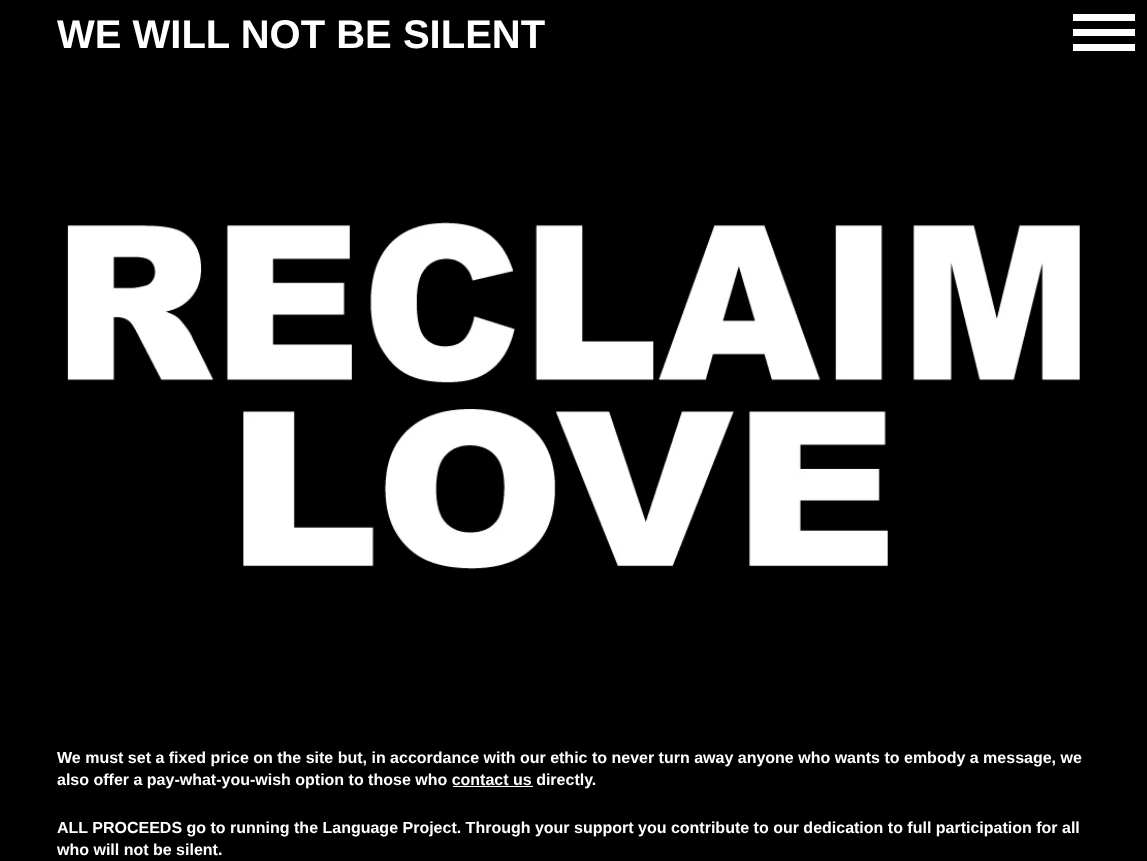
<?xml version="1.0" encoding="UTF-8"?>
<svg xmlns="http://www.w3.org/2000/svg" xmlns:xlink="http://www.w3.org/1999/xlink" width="1147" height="861">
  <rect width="100%" height="100%" fill="#000000" />
  <rect x="1073" y="14" width="62" height="7" fill="#ffffff" />
  <rect x="1073" y="29" width="62" height="7" fill="#ffffff" />
  <rect x="1073" y="44" width="62" height="7" fill="#ffffff" />
  <image x="67" y="220" width="1013" height="351" xlink:href="image1.png" />
  <rect x="453" y="786" width="80" height="1" fill="#ffffff" />
  <text x="57" y="48" style="font-family: Liberation Sans; font-size: 40px; font-weight: bold; fill: #ffffff">WE WILL NOT BE SILENT</text>
  <text x="57" y="763" style="font-family: Liberation Sans; font-size: 16px; font-weight: bold; fill: #ffffff">We must set a fixed price on the site but, in accordance with our ethic to never turn away anyone who wants to embody a message, we</text>
  <text x="57" y="785" style="font-family: Liberation Sans; font-size: 16px; font-weight: bold; fill: #ffffff">also offer a pay-what-you-wish option to those who contact us directly.</text>
  <text x="57" y="833" style="font-family: Liberation Sans; font-size: 16px; font-weight: bold; fill: #ffffff">ALL PROCEEDS go to running the Language Project. Through your support you contribute to our dedication to full participation for all</text>
  <text x="57" y="855" style="font-family: Liberation Sans; font-size: 16px; font-weight: bold; fill: #ffffff">who will not be silent.</text>
</svg>
